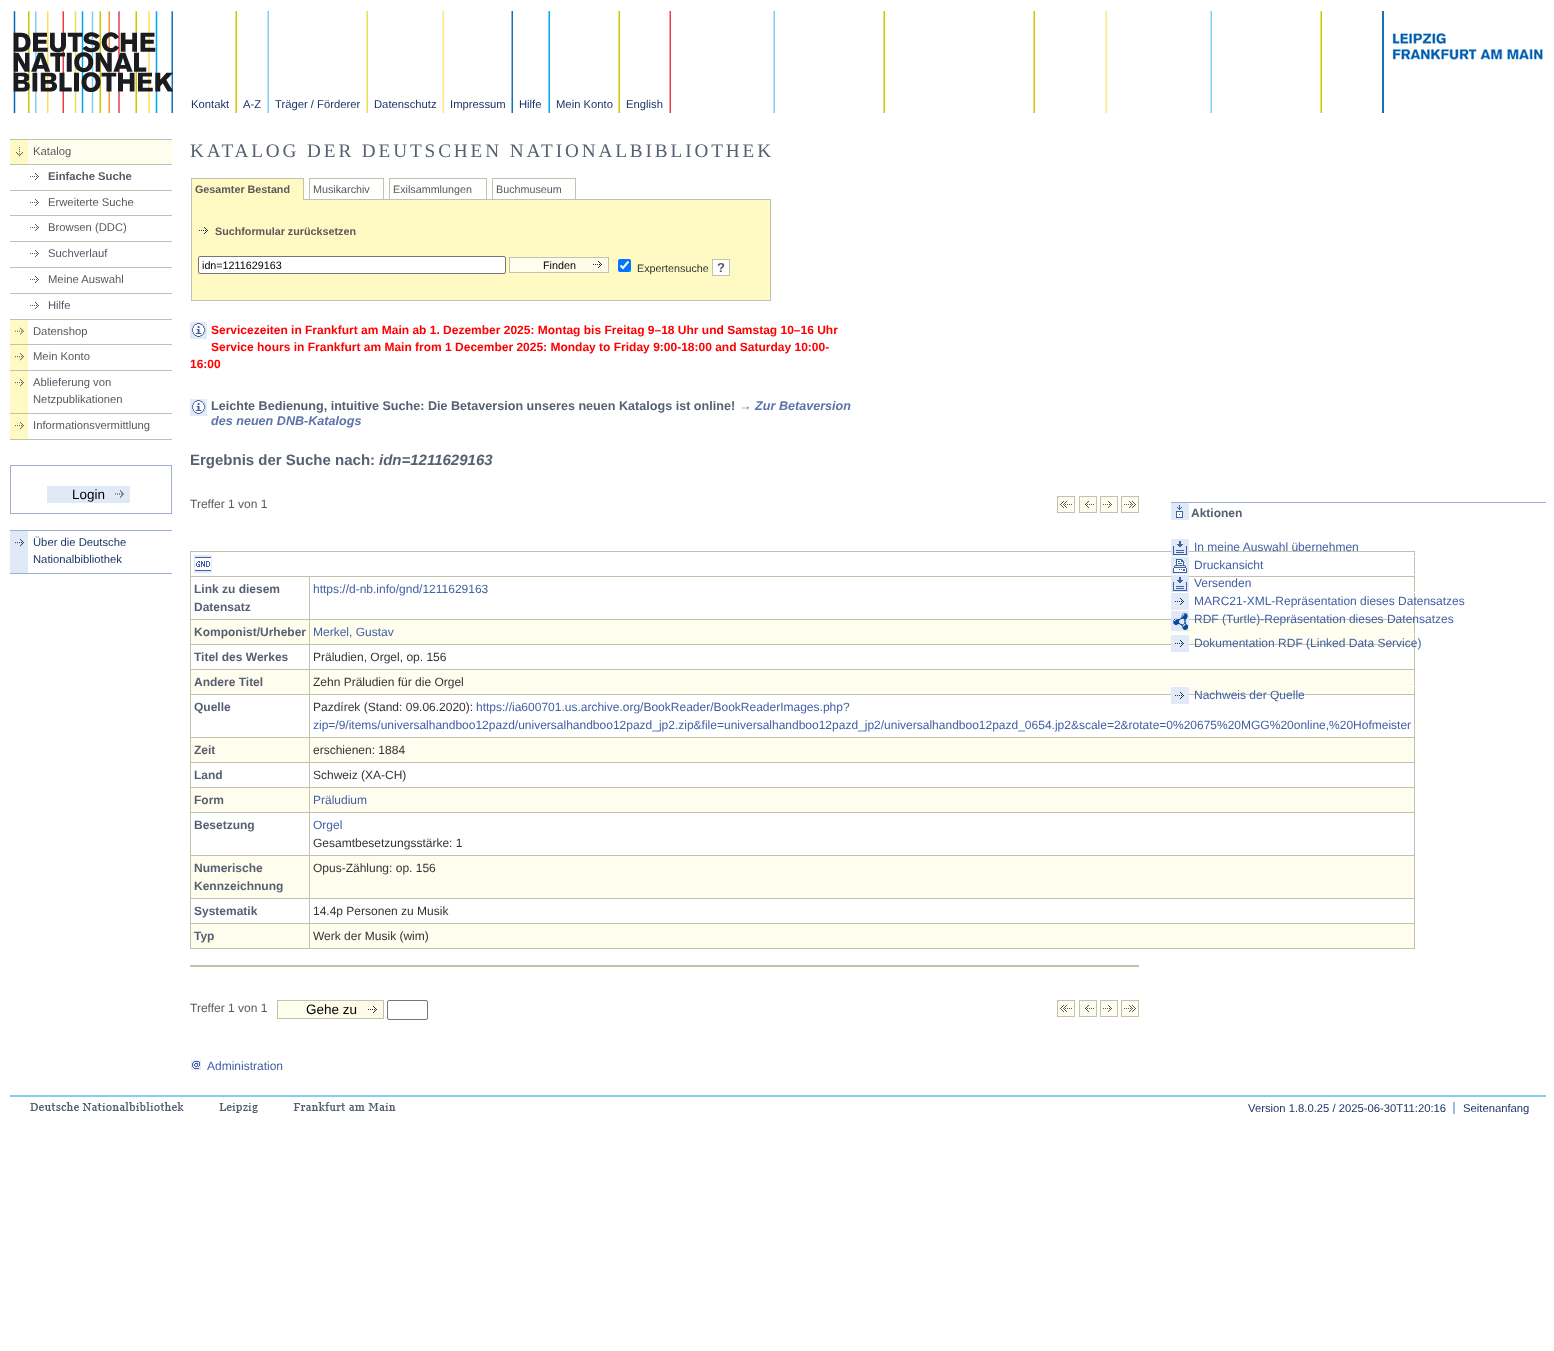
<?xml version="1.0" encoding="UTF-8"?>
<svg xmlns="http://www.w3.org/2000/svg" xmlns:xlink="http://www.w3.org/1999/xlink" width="1554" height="1351">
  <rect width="100%" height="100%" fill="#ffffff" />
  <image x="773" y="11" width="549" height="102" xlink:href="image1.png" />
  <image x="13" y="11" width="160" height="102" xlink:href="image2.png" />
  <image x="235" y="11" width="2" height="102" xlink:href="image3.png" />
  <image x="267" y="11" width="2" height="102" xlink:href="image4.png" />
  <image x="366" y="11" width="2" height="102" xlink:href="image5.png" />
  <image x="442" y="11" width="2" height="102" xlink:href="image6.png" />
  <image x="511" y="11" width="2" height="102" xlink:href="image7.png" />
  <image x="548" y="11" width="2" height="102" xlink:href="image8.png" />
  <image x="618" y="11" width="2" height="102" xlink:href="image3.png" />
  <image x="669" y="11" width="2" height="102" xlink:href="image9.png" />
  <image x="1382" y="11" width="162" height="102" xlink:href="image10.png" />
  <rect x="10" y="439" width="162" height="1" fill="#c1c3ae" />
  <rect x="28" y="140" width="144" height="24" fill="#fffded" />
  <image x="10" y="140" width="18" height="24" xlink:href="image11.png" />
  <rect x="10" y="139" width="162" height="1" fill="#c1c3ae" />
  <image x="16" y="144" width="7" height="13" xlink:href="image12.png" />
  <rect x="10" y="164" width="162" height="1" fill="#c1c3ae" />
  <image x="30" y="173" width="9" height="7" xlink:href="image13.png" />
  <rect x="10" y="190" width="162" height="1" fill="#c1c3ae" />
  <image x="30" y="199" width="9" height="7" xlink:href="image13.png" />
  <rect x="10" y="215" width="162" height="1" fill="#c1c3ae" />
  <image x="30" y="224" width="9" height="7" xlink:href="image13.png" />
  <rect x="10" y="241" width="162" height="1" fill="#c1c3ae" />
  <image x="30" y="250" width="9" height="7" xlink:href="image13.png" />
  <rect x="10" y="267" width="162" height="1" fill="#c1c3ae" />
  <image x="30" y="276" width="9" height="7" xlink:href="image13.png" />
  <rect x="10" y="293" width="162" height="1" fill="#c1c3ae" />
  <image x="30" y="302" width="9" height="7" xlink:href="image13.png" />
  <image x="10" y="320" width="18" height="24" xlink:href="image14.png" />
  <rect x="10" y="319" width="162" height="1" fill="#c1c3ae" />
  <image x="15" y="324" width="9" height="11" xlink:href="image15.png" />
  <image x="10" y="345" width="18" height="25" xlink:href="image16.png" />
  <rect x="10" y="344" width="162" height="1" fill="#c1c3ae" />
  <image x="15" y="350" width="9" height="11" xlink:href="image17.png" />
  <image x="10" y="371" width="18" height="42" xlink:href="image18.png" />
  <rect x="10" y="370" width="162" height="1" fill="#c1c3ae" />
  <image x="15" y="376" width="9" height="11" xlink:href="image17.png" />
  <image x="10" y="414" width="18" height="25" xlink:href="image16.png" />
  <rect x="10" y="413" width="162" height="1" fill="#c1c3ae" />
  <image x="15" y="419" width="9" height="11" xlink:href="image17.png" />
  <rect x="10.5" y="465.5" width="161" height="48" fill="none" stroke="#9eadd6" />
  <rect x="47" y="486" width="83" height="17" fill="#e0e9f8" />
  <image x="115" y="490" width="9" height="8" xlink:href="image19.png" />
  <rect x="10" y="573" width="162" height="1" fill="#9dafd5" />
  <image x="10" y="531" width="18" height="42" xlink:href="image20.png" />
  <rect x="10" y="530" width="162" height="1" fill="#9dafd5" />
  <image x="15" y="536" width="9" height="11" xlink:href="image21.png" />
  <rect x="309.5" y="178.5" width="74" height="30" fill="none" stroke="#c1c3ae" />
  <rect x="389.5" y="178.5" width="97" height="30" fill="none" stroke="#c1c3ae" />
  <rect x="492.5" y="178.5" width="83" height="30" fill="none" stroke="#c1c3ae" />
  <rect x="191.5" y="199.5" width="579" height="101" fill="#fffac3" stroke="#c1c3ae" />
  <rect x="192" y="179" width="111" height="21" fill="#fffac3" />
  <rect x="191" y="178" width="113" height="1" fill="#c1c3ae" />
  <rect x="303" y="178" width="1" height="22" fill="#c1c3ae" />
  <rect x="191" y="178" width="1" height="22" fill="#c1c3ae" />
  <image x="199" y="227" width="9" height="7" xlink:href="image22.png" />
  <rect x="198.5" y="256.5" width="307" height="17" rx="1.5" fill="#ffffff" stroke="#767676" />
  <rect x="510" y="258" width="44" height="14" fill="#fffded" />
  <image x="554" y="258" width="54" height="14" xlink:href="image23.png" />
  <rect x="509.5" y="257.5" width="99" height="15" fill="none" stroke="#c1c3ae" />
  <rect x="618" y="259" width="13" height="13" rx="2" fill="#0075ff" />
  <path d="M 620.5 265.5 l 2.5 2.5 l 5.5 -6.5" fill="none" stroke="#ffffff" stroke-width="2.1" />
  <rect x="712.5" y="259.5" width="17" height="16" fill="#ffffff" stroke="#c1c3ae" />
  <image x="190" y="322" width="17" height="17" xlink:href="image24.png" />
  <image x="190" y="399" width="17" height="17" xlink:href="image24.png" />
  <image x="1057" y="496" width="18" height="17" xlink:href="image25.png" />
  <image x="1079" y="496" width="18" height="17" xlink:href="image26.png" />
  <image x="1100" y="496" width="18" height="17" xlink:href="image27.png" />
  <image x="1121" y="496" width="18" height="17" xlink:href="image28.png" />
  <rect x="190" y="551" width="1225" height="1" fill="#c1c3ad" />
  <rect x="1414" y="551" width="1" height="398" fill="#c1c3ad" />
  <rect x="190" y="948" width="1225" height="1" fill="#c1c3ad" />
  <rect x="190" y="551" width="1" height="398" fill="#c1c3ad" />
  <image x="194" y="555" width="18" height="18" xlink:href="image29.png" />
  <rect x="190" y="576" width="1225" height="1" fill="#c1c3ad" />
  <rect x="190" y="619" width="1225" height="1" fill="#c1c3ad" />
  <rect x="191" y="620" width="118" height="24" fill="#fffded" />
  <rect x="310" y="620" width="1104" height="24" fill="#fffded" />
  <rect x="190" y="644" width="1225" height="1" fill="#c1c3ad" />
  <rect x="190" y="669" width="1225" height="1" fill="#c1c3ad" />
  <rect x="191" y="670" width="118" height="24" fill="#fffded" />
  <rect x="310" y="670" width="1104" height="24" fill="#fffded" />
  <rect x="190" y="694" width="1225" height="1" fill="#c1c3ad" />
  <rect x="190" y="737" width="1225" height="1" fill="#c1c3ad" />
  <rect x="191" y="738" width="118" height="24" fill="#fffded" />
  <rect x="310" y="738" width="1104" height="24" fill="#fffded" />
  <rect x="190" y="762" width="1225" height="1" fill="#c1c3ad" />
  <rect x="190" y="787" width="1225" height="1" fill="#c1c3ad" />
  <rect x="191" y="788" width="118" height="24" fill="#fffded" />
  <rect x="310" y="788" width="1104" height="24" fill="#fffded" />
  <rect x="190" y="812" width="1225" height="1" fill="#c1c3ad" />
  <rect x="190" y="855" width="1225" height="1" fill="#c1c3ad" />
  <rect x="191" y="856" width="118" height="42" fill="#fffded" />
  <rect x="310" y="856" width="1104" height="42" fill="#fffded" />
  <rect x="190" y="898" width="1225" height="1" fill="#c1c3ad" />
  <rect x="190" y="923" width="1225" height="1" fill="#c1c3ad" />
  <rect x="191" y="924" width="118" height="24" fill="#fffded" />
  <rect x="310" y="924" width="1104" height="24" fill="#fffded" />
  <rect x="309" y="576" width="1" height="373" fill="#c1c3ad" />
  <rect x="190" y="965" width="949" height="2" fill="#c1c3ad" />
  <rect x="278" y="1001" width="51" height="17" fill="#fefeed" />
  <image x="329" y="1001" width="54" height="17" xlink:href="image30.png" />
  <rect x="277.5" y="1000.5" width="106" height="18" fill="none" stroke="#c1c3ae" />
  <rect x="387.5" y="1000.5" width="40" height="19" rx="1.5" fill="none" stroke="#767676" />
  <image x="1057" y="1000" width="18" height="17" xlink:href="image25.png" />
  <image x="1079" y="1000" width="18" height="17" xlink:href="image26.png" />
  <image x="1100" y="1000" width="18" height="17" xlink:href="image27.png" />
  <image x="1121" y="1000" width="18" height="17" xlink:href="image28.png" />
  <rect x="1171" y="502" width="375" height="1" fill="#9eadd6" />
  <image x="1171" y="503" width="18" height="17" xlink:href="image31.png" />
  <image x="1171" y="539" width="18" height="17" xlink:href="image32.png" />
  <rect x="1414" y="556" width="1" height="1" fill="#ffffff" />
  <image x="1171" y="557" width="18" height="17" xlink:href="image33.png" />
  <rect x="1414" y="574" width="1" height="1" fill="#ffffff" />
  <image x="1171" y="575" width="18" height="17" xlink:href="image32.png" />
  <rect x="1414" y="592" width="1" height="1" fill="#ffffff" />
  <image x="1171" y="593" width="18" height="17" xlink:href="image34.png" />
  <rect x="1414" y="610" width="1" height="1" fill="#ffffff" />
  <image x="1171" y="611" width="18" height="20" xlink:href="image35.png" />
  <rect x="1171" y="634" width="244" height="1" fill="#ffffff" />
  <image x="1171" y="635" width="18" height="17" xlink:href="image34.png" />
  <rect x="1171" y="686" width="244" height="1" fill="#ffffff" />
  <image x="1171" y="687" width="18" height="17" xlink:href="image34.png" />
  <image x="191" y="1060" width="10" height="10" xlink:href="image36.png" />
  <rect x="10" y="1095" width="1536" height="2" fill="#80d0f4" />
  <image x="30" y="1102" width="366" height="11" xlink:href="image37.png" />
  <rect x="1453" y="1102" width="2" height="12" fill="#9fb6e8" />
  <text x="191" y="108" style="font-family: Liberation Sans; font-size: 11.25px; fill: #1c3667">Kontakt</text>
  <text x="243" y="108" style="font-family: Liberation Sans; font-size: 11.25px; fill: #1c3667">A-Z</text>
  <text x="275" y="108" style="font-family: Liberation Sans; font-size: 11.25px; fill: #1c3667">Träger / Förderer</text>
  <text x="374" y="108" style="font-family: Liberation Sans; font-size: 11.25px; fill: #1c3667">Datenschutz</text>
  <text x="450" y="108" style="font-family: Liberation Sans; font-size: 11.25px; fill: #1c3667">Impressum</text>
  <text x="519" y="108" style="font-family: Liberation Sans; font-size: 11.25px; fill: #1c3667">Hilfe</text>
  <text x="556" y="108" style="font-family: Liberation Sans; font-size: 11.25px; fill: #1c3667">Mein Konto</text>
  <text x="626" y="108" style="font-family: Liberation Sans; font-size: 11.25px; fill: #1c3667">English</text>
  <text x="33" y="155" style="font-family: Liberation Sans; font-size: 11.25px; fill: #5c575b">Katalog</text>
  <text x="48" y="180" style="font-family: Liberation Sans; font-size: 11.25px; font-weight: bold; fill: #5c575b">Einfache Suche</text>
  <text x="48" y="206" style="font-family: Liberation Sans; font-size: 11.25px; fill: #5c575b">Erweiterte Suche</text>
  <text x="48" y="231" style="font-family: Liberation Sans; font-size: 11.25px; fill: #5c575b">Browsen (DDC)</text>
  <text x="48" y="257" style="font-family: Liberation Sans; font-size: 11.25px; fill: #5c575b">Suchverlauf</text>
  <text x="48" y="283" style="font-family: Liberation Sans; font-size: 11.25px; fill: #5c575b">Meine Auswahl</text>
  <text x="48" y="309" style="font-family: Liberation Sans; font-size: 11.25px; fill: #5c575b">Hilfe</text>
  <text x="33" y="335" style="font-family: Liberation Sans; font-size: 11.25px; fill: #5c575b">Datenshop</text>
  <text x="33" y="360" style="font-family: Liberation Sans; font-size: 11.25px; fill: #5c575b">Mein Konto</text>
  <text x="33" y="386" style="font-family: Liberation Sans; font-size: 11.25px; fill: #5c575b">Ablieferung von</text>
  <text x="33" y="403" style="font-family: Liberation Sans; font-size: 11.25px; fill: #5c575b">Netzpublikationen</text>
  <text x="33" y="429" style="font-family: Liberation Sans; font-size: 11.25px; fill: #5c575b">Informationsvermittlung</text>
  <text x="72" y="499" style="font-family: Liberation Sans; font-size: 13.5px; fill: #000000">Login</text>
  <text x="33" y="546" style="font-family: Liberation Sans; font-size: 11.25px; fill: #1c3667">Über die Deutsche</text>
  <text x="33" y="563" style="font-family: Liberation Sans; font-size: 11.25px; fill: #1c3667">Nationalbibliothek</text>
  <text x="190" y="157" style="font-family: Liberation Serif; font-size: 19.2px; letter-spacing: 2.9px; fill: #576072">KATALOG DER DEUTSCHEN NATIONALBIBLIOTHEK</text>
  <text x="195" y="193" style="font-family: Liberation Sans; font-size: 10.75px; font-weight: bold; fill: #5c575b">Gesamter Bestand</text>
  <text x="313" y="193" style="font-family: Liberation Sans; font-size: 10.75px; fill: #5c575b">Musikarchiv</text>
  <text x="393" y="193" style="font-family: Liberation Sans; font-size: 10.75px; fill: #5c575b">Exilsammlungen</text>
  <text x="496" y="193" style="font-family: Liberation Sans; font-size: 10.75px; fill: #5c575b">Buchmuseum</text>
  <text x="215" y="235" style="font-family: Liberation Sans; font-size: 10.75px; font-weight: bold; fill: #5c575b">Suchformular zurücksetzen</text>
  <text x="202" y="269" style="font-family: Liberation Sans; font-size: 10.75px; fill: #000000">idn=1211629163</text>
  <text x="543" y="269" style="font-family: Liberation Sans; font-size: 10.75px; fill: #000000">Finden</text>
  <text x="637" y="272" style="font-family: Liberation Sans; font-size: 10.75px; fill: #333333">Expertensuche</text>
  <text x="717" y="272" style="font-family: Liberation Sans; font-size: 13px; font-weight: bold; fill: #5c575b">?</text>
  <text x="211" y="334" style="font-family: Liberation Sans; font-size: 12px; font-weight: bold; fill: #ff0000">Servicezeiten in Frankfurt am Main ab 1. Dezember 2025: Montag bis Freitag 9–18 Uhr und Samstag 10–16 Uhr</text>
  <text x="211" y="351" style="font-family: Liberation Sans; font-size: 12px; font-weight: bold; fill: #ff0000">Service hours in Frankfurt am Main from 1 December 2025: Monday to Friday 9:00-18:00 and Saturday 10:00-</text>
  <text x="190" y="368" style="font-family: Liberation Sans; font-size: 12px; font-weight: bold; fill: #ff0000">16:00</text>
  <text x="211" y="410" style="font-family: Liberation Sans; font-size: 12.6px; font-weight: bold; fill: #576072">Leichte Bedienung, intuitive Suche: Die Betaversion unseres neuen Katalogs ist online!</text>
  <text x="739" y="410" style="font-family: Liberation Sans; font-size: 12.6px; font-weight: bold; font-style: italic; fill: #5a74a9">→ Zur Betaversion</text>
  <text x="211" y="425" style="font-family: Liberation Sans; font-size: 12.6px; font-weight: bold; font-style: italic; fill: #5a74a9">des neuen DNB-Katalogs</text>
  <text x="190" y="465" style="font-family: Liberation Sans; font-size: 15px; font-weight: bold; fill: #576072">Ergebnis der Suche nach:</text>
  <text x="379" y="465" style="font-family: Liberation Sans; font-size: 15px; font-weight: bold; font-style: italic; fill: #576072">idn=1211629163</text>
  <text x="190" y="508" style="font-family: Liberation Sans; font-size: 12px; fill: #5c575b">Treffer 1 von 1</text>
  <text x="194" y="593" style="font-family: Liberation Sans; font-size: 12px; font-weight: bold; fill: #576072">Link zu diesem</text>
  <text x="194" y="611" style="font-family: Liberation Sans; font-size: 12px; font-weight: bold; fill: #576072">Datensatz</text>
  <text x="313" y="593" style="font-family: Liberation Sans; font-size: 12px; fill: #4160a5">https://d-nb.info/gnd/1211629163</text>
  <text x="194" y="636" style="font-family: Liberation Sans; font-size: 12px; font-weight: bold; fill: #576072">Komponist/Urheber</text>
  <text x="313" y="636" style="font-family: Liberation Sans; font-size: 12px; fill: #4160a5">Merkel, Gustav</text>
  <text x="194" y="661" style="font-family: Liberation Sans; font-size: 12px; font-weight: bold; fill: #576072">Titel des Werkes</text>
  <text x="313" y="661" style="font-family: Liberation Sans; font-size: 12px; fill: #333333">Präludien, Orgel, op. 156</text>
  <text x="194" y="686" style="font-family: Liberation Sans; font-size: 12px; font-weight: bold; fill: #576072">Andere Titel</text>
  <text x="313" y="686" style="font-family: Liberation Sans; font-size: 12px; fill: #333333">Zehn Präludien für die Orgel</text>
  <text x="194" y="711" style="font-family: Liberation Sans; font-size: 12px; font-weight: bold; fill: #576072">Quelle</text>
  <text x="313" y="711" style="font-family: Liberation Sans; font-size: 12px; fill: #333333">Pazdírek (Stand: 09.06.2020):</text>
  <text x="476" y="711" style="font-family: Liberation Sans; font-size: 12px; fill: #4160a5">https://ia600701.us.archive.org/BookReader/BookReaderImages.php?</text>
  <text x="313" y="729" style="font-family: Liberation Sans; font-size: 12px; fill: #4160a5">zip=/9/items/universalhandboo12pazd/universalhandboo12pazd_jp2.zip&amp;file=universalhandboo12pazd_jp2/universalhandboo12pazd_0654.jp2&amp;scale=2&amp;rotate=0%20675%20MGG%20online,%20Hofmeister</text>
  <text x="194" y="754" style="font-family: Liberation Sans; font-size: 12px; font-weight: bold; fill: #576072">Zeit</text>
  <text x="313" y="754" style="font-family: Liberation Sans; font-size: 12px; fill: #333333">erschienen: 1884</text>
  <text x="194" y="779" style="font-family: Liberation Sans; font-size: 12px; font-weight: bold; fill: #576072">Land</text>
  <text x="313" y="779" style="font-family: Liberation Sans; font-size: 12px; fill: #333333">Schweiz (XA-CH)</text>
  <text x="194" y="804" style="font-family: Liberation Sans; font-size: 12px; font-weight: bold; fill: #576072">Form</text>
  <text x="313" y="804" style="font-family: Liberation Sans; font-size: 12px; fill: #4160a5">Präludium</text>
  <text x="194" y="829" style="font-family: Liberation Sans; font-size: 12px; font-weight: bold; fill: #576072">Besetzung</text>
  <text x="313" y="829" style="font-family: Liberation Sans; font-size: 12px; fill: #4160a5">Orgel</text>
  <text x="313" y="847" style="font-family: Liberation Sans; font-size: 12px; fill: #333333">Gesamtbesetzungsstärke: 1</text>
  <text x="194" y="872" style="font-family: Liberation Sans; font-size: 12px; font-weight: bold; fill: #576072">Numerische</text>
  <text x="194" y="890" style="font-family: Liberation Sans; font-size: 12px; font-weight: bold; fill: #576072">Kennzeichnung</text>
  <text x="313" y="872" style="font-family: Liberation Sans; font-size: 12px; fill: #333333">Opus-Zählung: op. 156</text>
  <text x="194" y="915" style="font-family: Liberation Sans; font-size: 12px; font-weight: bold; fill: #576072">Systematik</text>
  <text x="313" y="915" style="font-family: Liberation Sans; font-size: 12px; fill: #333333">14.4p Personen zu Musik</text>
  <text x="194" y="940" style="font-family: Liberation Sans; font-size: 12px; font-weight: bold; fill: #576072">Typ</text>
  <text x="313" y="940" style="font-family: Liberation Sans; font-size: 12px; fill: #333333">Werk der Musik (wim)</text>
  <text x="190" y="1012" style="font-family: Liberation Sans; font-size: 12px; fill: #5c575b">Treffer 1 von 1</text>
  <text x="306" y="1014" style="font-family: Liberation Sans; font-size: 13.5px; fill: #000000">Gehe zu</text>
  <text x="1191" y="517" style="font-family: Liberation Sans; font-size: 12px; font-weight: bold; fill: #576072">Aktionen</text>
  <text x="1194" y="551" style="font-family: Liberation Sans; font-size: 12px; fill: #4160a5">In meine Auswahl übernehmen</text>
  <text x="1194" y="569" style="font-family: Liberation Sans; font-size: 12px; fill: #4160a5">Druckansicht</text>
  <text x="1194" y="587" style="font-family: Liberation Sans; font-size: 12px; fill: #4160a5">Versenden</text>
  <text x="1194" y="605" style="font-family: Liberation Sans; font-size: 12px; fill: #4160a5">MARC21-XML-Repräsentation dieses Datensatzes</text>
  <text x="1194" y="623" style="font-family: Liberation Sans; font-size: 12px; fill: #4160a5">RDF (Turtle)-Repräsentation dieses Datensatzes</text>
  <text x="1194" y="647" style="font-family: Liberation Sans; font-size: 12px; fill: #4160a5">Dokumentation RDF (Linked Data Service)</text>
  <text x="1194" y="699" style="font-family: Liberation Sans; font-size: 12px; fill: #4160a5">Nachweis der Quelle</text>
  <text x="207" y="1070" style="font-family: Liberation Sans; font-size: 12px; fill: #4160a5">Administration</text>
  <text x="1248" y="1112" style="font-family: Liberation Sans; font-size: 11.25px; fill: #1c3667">Version 1.8.0.25 / 2025-06-30T11:20:16</text>
  <text x="1463" y="1112" style="font-family: Liberation Sans; font-size: 11.25px; fill: #1c3667">Seitenanfang</text>
</svg>
